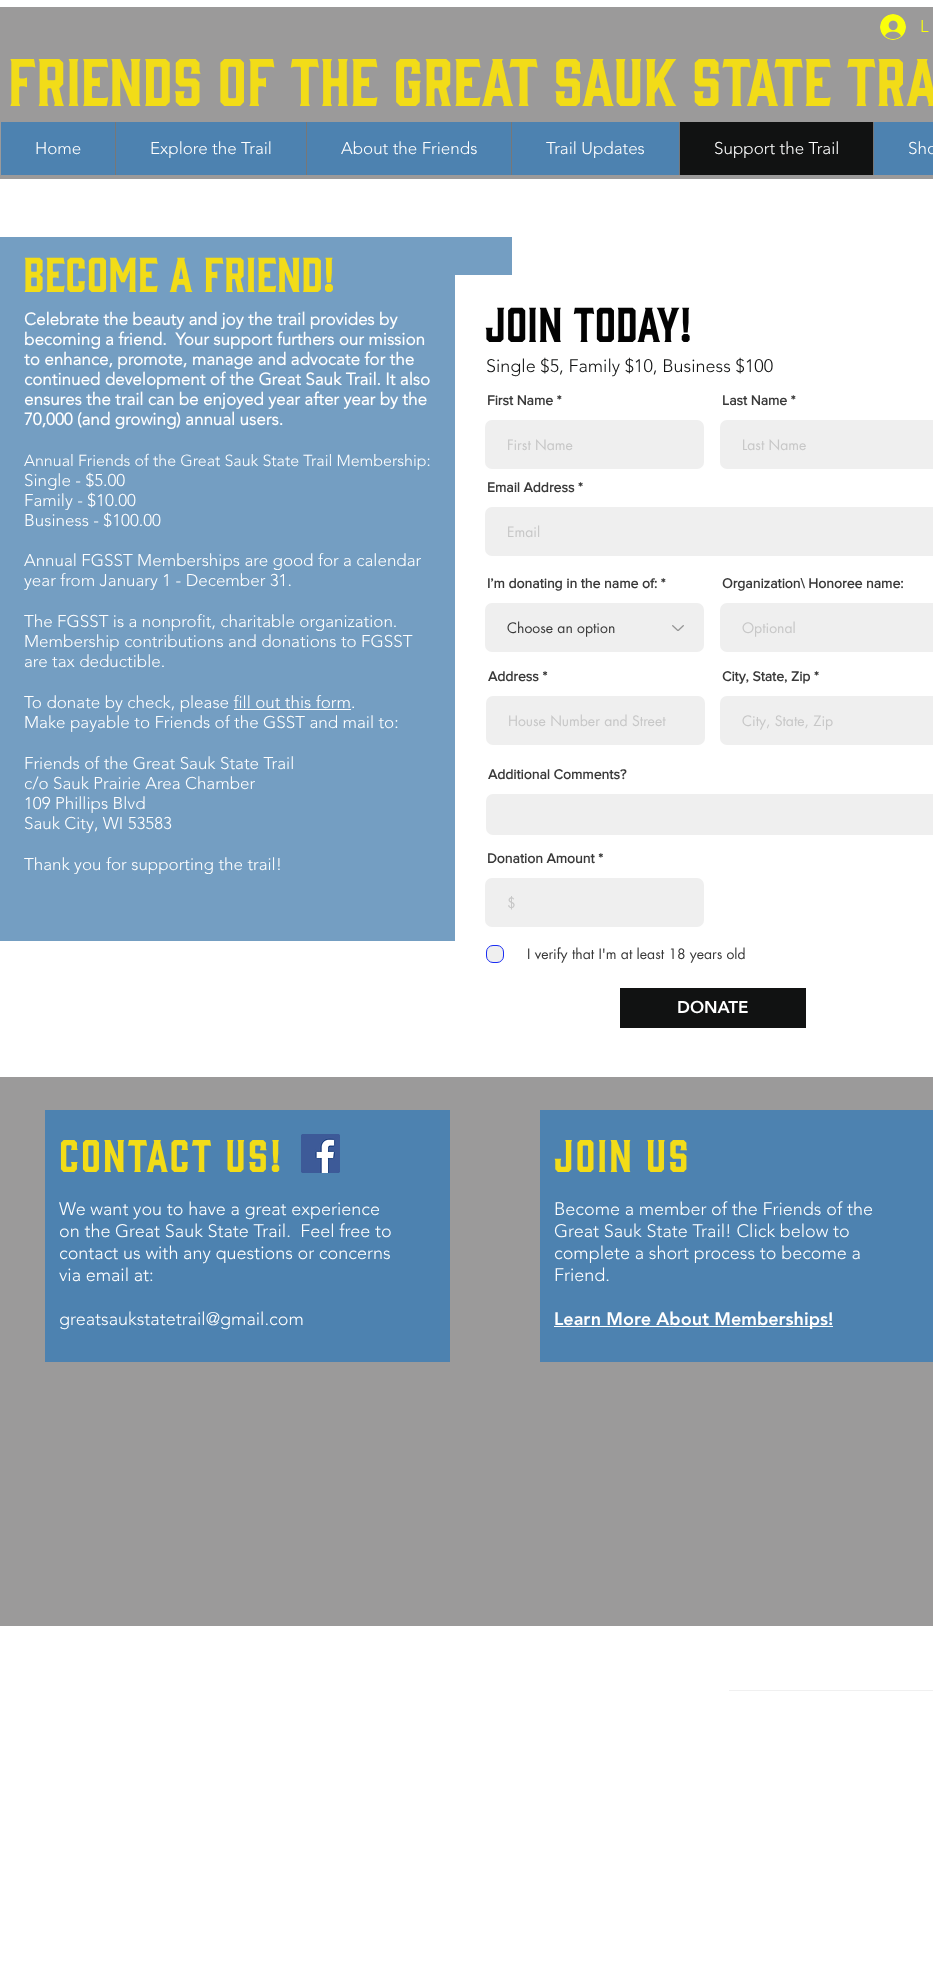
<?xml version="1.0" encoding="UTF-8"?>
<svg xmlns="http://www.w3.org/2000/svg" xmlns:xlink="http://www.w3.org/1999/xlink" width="933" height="1966">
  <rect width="100%" height="100%" fill="#ffffff" />
  <rect y="7" width="933" height="172" fill="#9b9a9a" />
  <image x="880" y="14" width="26" height="26" xlink:href="image1.png" />
  <rect x="1" y="122" width="932" height="53" fill="#4d82b0" />
  <rect x="115" y="122" width="1" height="53" fill="#777777" />
  <rect x="306" y="122" width="1" height="53" fill="#777777" />
  <rect x="511" y="122" width="1" height="53" fill="#777777" />
  <rect x="680" y="122" width="193" height="53" fill="#111212" />
  <rect x="679" y="122" width="1" height="53" fill="#777777" />
  <rect x="873" y="122" width="1" height="53" fill="#777777" />
  <rect y="237" width="512" height="704" fill="#749ec2" />
  <rect x="234" y="709" width="117" height="1" fill="#ffffff" />
  <rect x="455" y="275" width="57" height="666" fill="#ffffff" />
  <rect x="485" y="420" width="219" height="49" rx="7" fill="#efefef" />
  <rect x="720" y="420" width="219" height="49" rx="7" fill="#efefef" />
  <rect x="485" y="507" width="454" height="49" rx="7" fill="#efefef" />
  <rect x="485" y="603" width="219" height="49" rx="7" fill="#efefef" />
  <image x="672" y="625" width="12" height="6" xlink:href="image2.png" />
  <rect x="720" y="603" width="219" height="49" rx="7" fill="#efefef" />
  <rect x="486" y="696" width="219" height="49" rx="7" fill="#efefef" />
  <rect x="720" y="696" width="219" height="49" rx="7" fill="#efefef" />
  <rect x="486" y="794" width="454" height="41" rx="7" fill="#efefef" />
  <rect x="485" y="878" width="219" height="49" rx="7" fill="#efefef" />
  <rect x="486.5" y="945.5" width="17" height="17" rx="6.5" fill="#efefef" stroke="#1a2df3" />
  <rect x="620" y="988" width="186" height="40" fill="#111212" />
  <rect y="1077" width="933" height="549" fill="#9b9a9a" />
  <rect x="45" y="1110" width="405" height="252" fill="#4d82b0" />
  <image x="301" y="1134" width="39" height="39" xlink:href="image3.png" />
  <rect x="540" y="1110" width="393" height="252" fill="#4d82b0" />
  <rect x="554" y="1326" width="279" height="1" fill="#ffffff" />
  <rect x="729" y="1690" width="204" height="1" fill="#f0f0f0" />
  <text x="920" y="32" style="font-family: 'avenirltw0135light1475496'; font-size: 17px; font-weight: 300; fill: #faff0a">L</text>
  <text x="8" y="106" style="font-family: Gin; font-size: 62px; fill: #f2dc18">FRIENDS OF THE GREAT SAUK STATE TRA</text>
  <text x="35" y="154" style="font-family: 'avenirltw0135light1475496'; font-size: 17px; font-weight: 300; fill: #ffffff">Home</text>
  <text x="150" y="154" style="font-family: 'avenirltw0135light1475496'; font-size: 17px; font-weight: 300; fill: #ffffff">Explore the Trail</text>
  <text x="341" y="154" style="font-family: 'avenirltw0135light1475496'; font-size: 17px; font-weight: 300; fill: #ffffff">About the Friends</text>
  <text x="546" y="154" style="font-family: 'avenirltw0135light1475496'; font-size: 17px; font-weight: 300; fill: #ffffff">Trail Updates</text>
  <text x="714" y="154" style="font-family: 'avenirltw0135light1475496'; font-size: 17px; font-weight: 300; fill: #ffffff">Support the Trail</text>
  <text x="908" y="154" style="font-family: 'avenirltw0135light1475496'; font-size: 17px; font-weight: 300; fill: #ffffff">Sho</text>
  <text x="23" y="292" style="font-family: Gin; font-size: 45px; fill: #f2dc18">Become a Friend!</text>
  <text x="24" y="325" style="font-family: 'avenirltw0135light1475496'; font-size: 17px; font-weight: bold; fill: #ffffff">Celebrate the beauty and joy the trail provides by</text>
  <text x="24" y="345" style="font-family: 'avenirltw0135light1475496'; font-size: 17px; font-weight: bold; fill: #ffffff" xml:space="preserve">becoming a friend.  Your support furthers our mission</text>
  <text x="24" y="365" style="font-family: 'avenirltw0135light1475496'; font-size: 17px; font-weight: bold; fill: #ffffff">to enhance, promote, manage and advocate for the</text>
  <text x="24" y="385" style="font-family: 'avenirltw0135light1475496'; font-size: 17px; font-weight: bold; fill: #ffffff">continued development of the Great Sauk Trail. It also</text>
  <text x="24" y="405" style="font-family: 'avenirltw0135light1475496'; font-size: 17px; font-weight: bold; fill: #ffffff">ensures the trail can be enjoyed year after year by the</text>
  <text x="24" y="425" style="font-family: 'avenirltw0135light1475496'; font-size: 17px; font-weight: bold; fill: #ffffff">70,000 (and growing) annual users.</text>
  <text x="24" y="466" style="font-family: 'avenirltw0135light1475496'; font-size: 16px; font-weight: 300; fill: #ffffff">Annual Friends of the Great Sauk State Trail Membership:</text>
  <text x="24" y="486" style="font-family: 'avenirltw0135light1475496'; font-size: 17px; font-weight: 300; fill: #ffffff">Single - $5.00</text>
  <text x="24" y="506" style="font-family: 'avenirltw0135light1475496'; font-size: 17px; font-weight: 300; fill: #ffffff">Family - $10.00</text>
  <text x="24" y="526" style="font-family: 'avenirltw0135light1475496'; font-size: 17px; font-weight: 300; fill: #ffffff">Business - $100.00</text>
  <text x="24" y="566" style="font-family: 'avenirltw0135light1475496'; font-size: 17px; font-weight: 300; fill: #ffffff">Annual FGSST Memberships are good for a calendar</text>
  <text x="24" y="586" style="font-family: 'avenirltw0135light1475496'; font-size: 17px; font-weight: 300; fill: #ffffff">year from January 1 - December 31.</text>
  <text x="24" y="627" style="font-family: 'avenirltw0135light1475496'; font-size: 17px; font-weight: 300; fill: #ffffff">The FGSST is a nonprofit, charitable organization.</text>
  <text x="24" y="647" style="font-family: 'avenirltw0135light1475496'; font-size: 17px; font-weight: 300; fill: #ffffff">Membership contributions and donations to FGSST</text>
  <text x="24" y="667" style="font-family: 'avenirltw0135light1475496'; font-size: 17px; font-weight: 300; fill: #ffffff">are tax deductible.</text>
  <text x="24" y="708" style="font-family: 'avenirltw0135light1475496'; font-size: 17px; font-weight: 300; fill: #ffffff">To donate by check, please fill out this form.</text>
  <text x="24" y="728" style="font-family: 'avenirltw0135light1475496'; font-size: 17px; font-weight: 300; fill: #ffffff">Make payable to Friends of the GSST and mail to:</text>
  <text x="24" y="769" style="font-family: 'avenirltw0135light1475496'; font-size: 17px; font-weight: 300; fill: #ffffff">Friends of the Great Sauk State Trail</text>
  <text x="24" y="789" style="font-family: 'avenirltw0135light1475496'; font-size: 17px; font-weight: 300; fill: #ffffff">c/o Sauk Prairie Area Chamber</text>
  <text x="24" y="809" style="font-family: 'avenirltw0135light1475496'; font-size: 17px; font-weight: 300; fill: #ffffff">109 Phillips Blvd</text>
  <text x="24" y="829" style="font-family: 'avenirltw0135light1475496'; font-size: 17px; font-weight: 300; fill: #ffffff">Sauk City, WI 53583</text>
  <text x="24" y="870" style="font-family: 'avenirltw0135light1475496'; font-size: 17px; font-weight: 300; fill: #ffffff">Thank you for supporting the trail!</text>
  <text x="485" y="342" style="font-family: Gin; font-size: 45px; fill: #030303">JOIN TODAY!</text>
  <text x="486" y="372" style="font-family: 'avenirltw0135light1475496'; font-size: 18px; font-weight: 300; fill: #111212">Single $5, Family $10, Business $100</text>
  <text x="487" y="405" style="font-family: 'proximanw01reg'; font-size: 14px; font-weight: bold; fill: #393939">First Name *</text>
  <text x="507" y="450" style="font-family: futura; font-size: 14px; fill: #c7c7c7">First Name</text>
  <text x="722" y="405" style="font-family: 'proximanw01reg'; font-size: 14px; font-weight: bold; fill: #393939">Last Name *</text>
  <text x="742" y="450" style="font-family: futura; font-size: 14px; fill: #c7c7c7">Last Name</text>
  <text x="487" y="492" style="font-family: 'proximanw01reg'; font-size: 14px; font-weight: bold; fill: #393939">Email Address *</text>
  <text x="507" y="537" style="font-family: futura; font-size: 14px; fill: #c7c7c7">Email</text>
  <text x="487" y="588" style="font-family: 'proximanw01reg'; font-size: 14px; font-weight: bold; fill: #393939">I’m donating in the name of: *</text>
  <text x="507" y="633" style="font-family: futura; font-size: 14px; fill: #393939">Choose an option</text>
  <text x="722" y="588" style="font-family: 'proximanw01reg'; font-size: 14px; font-weight: bold; fill: #393939">Organization\ Honoree name:</text>
  <text x="742" y="633" style="font-family: futura; font-size: 14px; fill: #c7c7c7">Optional</text>
  <text x="488" y="681" style="font-family: 'proximanw01reg'; font-size: 14px; font-weight: bold; fill: #393939">Address *</text>
  <text x="508" y="726" style="font-family: futura; font-size: 14px; fill: #c7c7c7">House Number and Street</text>
  <text x="722" y="681" style="font-family: 'proximanw01reg'; font-size: 14px; font-weight: bold; fill: #393939">City, State, Zip *</text>
  <text x="742" y="726" style="font-family: futura; font-size: 14px; fill: #c7c7c7">City, State, Zip</text>
  <text x="488" y="779" style="font-family: 'proximanw01reg'; font-size: 14px; font-weight: bold; fill: #393939">Additional Comments?</text>
  <text x="487" y="863" style="font-family: 'proximanw01reg'; font-size: 14px; font-weight: bold; fill: #393939">Donation Amount *</text>
  <text x="507" y="908" style="font-family: futura; font-size: 14px; fill: #c7c7c7">$</text>
  <text x="527" y="959" style="font-family: futura; font-size: 14px; fill: #393939">I verify that I'm at least 18 years old</text>
  <text x="677" y="1013" style="font-family: 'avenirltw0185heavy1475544'; font-size: 17px; font-weight: 900; fill: #ffffff">DONATE</text>
  <text x="59" y="1172" style="font-family: Gin; font-size: 42px; letter-spacing: 1.9px; fill: #f2dc18">CONTACT US!</text>
  <text x="59" y="1215" style="font-family: 'avenirltw0135light1475496'; font-size: 18px; font-weight: 300; fill: #ffffff">We want you to have a great experience</text>
  <text x="59" y="1237" style="font-family: 'avenirltw0135light1475496'; font-size: 18px; font-weight: 300; fill: #ffffff" xml:space="preserve">on the Great Sauk State Trail.  Feel free to</text>
  <text x="59" y="1259" style="font-family: 'avenirltw0135light1475496'; font-size: 18px; font-weight: 300; fill: #ffffff">contact us with any questions or concerns</text>
  <text x="59" y="1281" style="font-family: 'avenirltw0135light1475496'; font-size: 18px; font-weight: 300; fill: #ffffff">via email at:</text>
  <text x="59" y="1325" style="font-family: 'avenirltw0135light1475496'; font-size: 18px; font-weight: 300; fill: #ffffff">greatsaukstatetrail@gmail.com</text>
  <text x="554" y="1172" style="font-family: Gin; font-size: 42px; letter-spacing: 1.9px; fill: #f2dc18">JOin US</text>
  <text x="554" y="1215" style="font-family: 'avenirltw0135light1475496'; font-size: 18px; font-weight: 300; fill: #ffffff">Become a member of the Friends of the</text>
  <text x="554" y="1237" style="font-family: 'avenirltw0135light1475496'; font-size: 18px; font-weight: 300; fill: #ffffff">Great Sauk State Trail! Click below to</text>
  <text x="554" y="1259" style="font-family: 'avenirltw0135light1475496'; font-size: 18px; font-weight: 300; fill: #ffffff">complete a short process to become a</text>
  <text x="554" y="1281" style="font-family: 'avenirltw0135light1475496'; font-size: 18px; font-weight: 300; fill: #ffffff">Friend.</text>
  <text x="554" y="1325" style="font-family: 'avenirltw0185heavy1475544'; font-size: 18px; font-weight: 900; fill: #ffffff">Learn More About Memberships!</text>
</svg>
